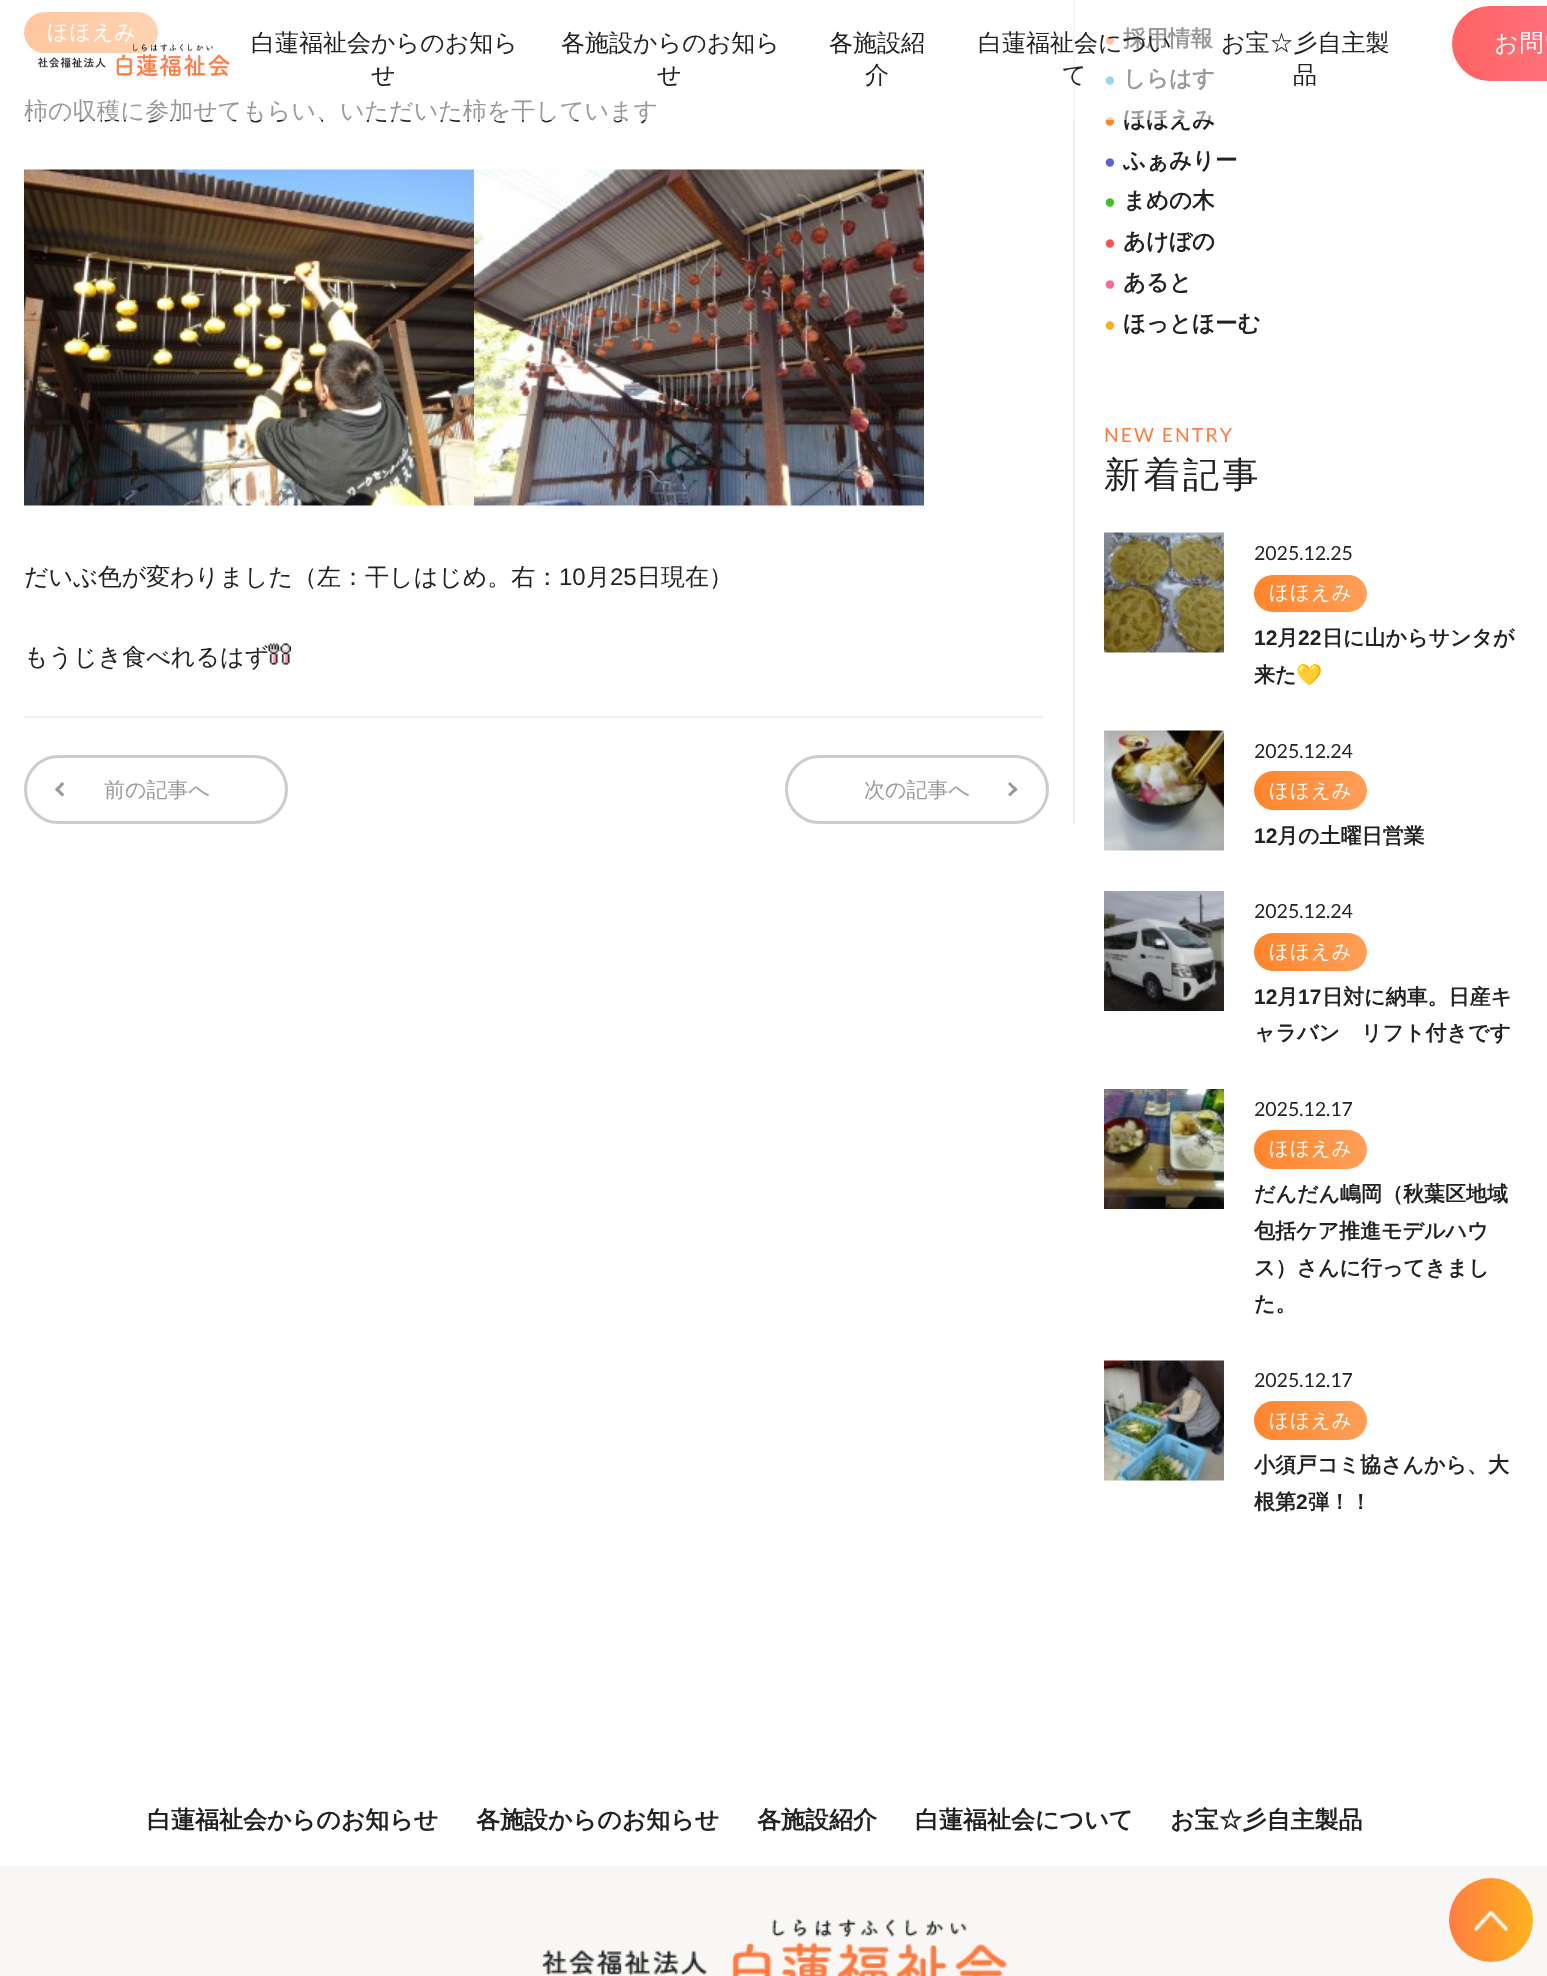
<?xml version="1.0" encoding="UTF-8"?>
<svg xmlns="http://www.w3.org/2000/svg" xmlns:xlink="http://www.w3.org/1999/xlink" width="1547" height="1976">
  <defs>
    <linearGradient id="g1" gradientUnits="userSpaceOnUse" x1="24" y1="32" x2="158" y2="32"><stop offset="0" stop-color="#ff852c" /><stop offset="1" stop-color="#ff9f59" /></linearGradient>
    <linearGradient id="g2" gradientUnits="userSpaceOnUse" x1="1254" y1="593" x2="1367" y2="593"><stop offset="0" stop-color="#ff852c" /><stop offset="1" stop-color="#ff9f59" /></linearGradient>
    <linearGradient id="g3" gradientUnits="userSpaceOnUse" x1="1254" y1="791" x2="1367" y2="791"><stop offset="0" stop-color="#ff852c" /><stop offset="1" stop-color="#ff9f59" /></linearGradient>
    <linearGradient id="g4" gradientUnits="userSpaceOnUse" x1="1254" y1="952" x2="1367" y2="952"><stop offset="0" stop-color="#ff852c" /><stop offset="1" stop-color="#ff9f59" /></linearGradient>
    <linearGradient id="g5" gradientUnits="userSpaceOnUse" x1="1254" y1="1149" x2="1367" y2="1149"><stop offset="0" stop-color="#ff852c" /><stop offset="1" stop-color="#ff9f59" /></linearGradient>
    <linearGradient id="g6" gradientUnits="userSpaceOnUse" x1="1254" y1="1421" x2="1367" y2="1421"><stop offset="0" stop-color="#ff852c" /><stop offset="1" stop-color="#ff9f59" /></linearGradient>
    <linearGradient id="g7" gradientUnits="userSpaceOnUse" x1="1452" y1="44" x2="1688" y2="43"><stop offset="0" stop-color="#ff6363" /><stop offset="1" stop-color="#fe839d" /></linearGradient>
  </defs>
  <rect width="100%" height="100%" fill="#ffffff" />
  <rect x="1073" width="2" height="824" fill="#eeeeee" />
  <rect x="24" y="12" width="134" height="41" rx="20.5" fill="url(#g1)" />
  <image x="24" y="169" width="450" height="337" xlink:href="image1.png" />
  <image x="474" y="169" width="450" height="337" xlink:href="image2.png" />
  <image x="268" y="643" width="23" height="22" xlink:href="image3.png" />
  <rect x="24" y="716" width="1019" height="2" fill="#eeeeee" />
  <rect x="25.5" y="756.5" width="261" height="66" rx="33" fill="none" stroke="#cccccc" stroke-width="3" />
  <path d="M 62 796.5 l -7 -7 l 2 -2.5 l 7.5 7.5 z" fill="#999999" />
  <path d="M 57 791.5 l -2 -2 l 7 -7.5 l 2.5 2 z" fill="#999999" />
  <rect x="786.5" y="756.5" width="261" height="66" rx="33" fill="none" stroke="#cccccc" stroke-width="3" />
  <path d="M 1010 782 l 7.5 7.5 l -2 2 l -7.5 -7.5 z" fill="#999999" />
  <path d="M 1015.5 787 l 2 2.5 l -7.5 7 l -2 -2 z" fill="#999999" />
  <image x="1104" y="532" width="120" height="121" xlink:href="image4.png" />
  <rect x="1254" y="575" width="113" height="37" rx="18.5" fill="url(#g2)" />
  <image x="1104" y="730" width="120" height="121" xlink:href="image5.png" />
  <rect x="1254" y="771" width="113" height="39" rx="19.5" fill="url(#g3)" />
  <image x="1104" y="891" width="120" height="120" xlink:href="image6.png" />
  <rect x="1254" y="933" width="113" height="38" rx="19" fill="url(#g4)" />
  <image x="1104" y="1089" width="120" height="120" xlink:href="image7.png" />
  <rect x="1254" y="1130" width="113" height="39" rx="19.5" fill="url(#g5)" />
  <image x="1104" y="1360" width="120" height="121" xlink:href="image8.png" />
  <rect x="1254" y="1401" width="113" height="39" rx="19.5" fill="url(#g6)" />
  <rect x="1452" y="6" width="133" height="75" rx="37.5" fill="url(#g7)" />
  <rect y="1866" width="1547" height="110" fill="#f8f7f5" />
  <image x="541" y="1918" width="466" height="58" xlink:href="image10.png" />
  <image x="1449" y="1878" width="84" height="84" xlink:href="image11.png" />
  <text x="47" y="39" style="font-family: Noto Sans; font-size: 21px; font-weight: 500; letter-spacing: 1px; fill: #ffffff">ほほえみ</text>
  <text x="24" y="119" style="font-family: WenQuanYi Zen Hei; font-size: 24px; font-weight: 500; fill: #222222">柿の収穫に参加せてもらい、いただいた柿を干しています</text>
  <text x="24" y="585" style="font-family: WenQuanYi Zen Hei; font-size: 24px; font-weight: 500; fill: #222222">だいぶ色が変わりました（左：干しはじめ。右：</text>
  <text x="559" y="585" style="font-family: Liberation Sans; font-size: 24px; fill: #222222">10</text>
  <text x="586" y="585" style="font-family: WenQuanYi Zen Hei; font-size: 24px; font-weight: 500; fill: #222222">月</text>
  <text x="610" y="585" style="font-family: Liberation Sans; font-size: 24px; fill: #222222">25</text>
  <text x="637" y="585" style="font-family: WenQuanYi Zen Hei; font-size: 24px; font-weight: 500; fill: #222222">日現在）</text>
  <text x="24" y="665" style="font-family: WenQuanYi Zen Hei; font-size: 24px; font-weight: 500; fill: #222222">もうじき食べれるはず</text>
  <text x="104" y="797" style="font-family: Noto Sans; font-size: 21px; font-weight: 100; fill: #999999">前の記事へ</text>
  <text x="864" y="797" style="font-family: Noto Sans; font-size: 21px; font-weight: 100; fill: #999999">次の記事へ</text>
  <text x="1104" y="46" style="font-family: Liberation Sans; font-size: 19.5px; font-weight: bold; fill: #ff7c41">●</text>
  <text x="1123" y="46" style="font-family: WenQuanYi Zen Hei; font-size: 22.5px; font-weight: bold; fill: #222222">採用情報</text>
  <text x="1104" y="86" style="font-family: Liberation Sans; font-size: 19.5px; font-weight: bold; fill: #17aacf">●</text>
  <text x="1123" y="86" style="font-family: WenQuanYi Zen Hei; font-size: 22.5px; font-weight: bold; fill: #222222">しらはす</text>
  <text x="1104" y="127" style="font-family: Liberation Sans; font-size: 19.5px; font-weight: bold; fill: #ff852c">●</text>
  <text x="1123" y="127" style="font-family: WenQuanYi Zen Hei; font-size: 22.5px; font-weight: bold; fill: #222222">ほほえみ</text>
  <text x="1104" y="168" style="font-family: Liberation Sans; font-size: 19.5px; font-weight: bold; fill: #6161cd">●</text>
  <text x="1123" y="168" style="font-family: WenQuanYi Zen Hei; font-size: 22.5px; font-weight: bold; fill: #222222">ふぁみりー</text>
  <text x="1104" y="208" style="font-family: Liberation Sans; font-size: 19.5px; font-weight: bold; fill: #3ec023">●</text>
  <text x="1123" y="208" style="font-family: WenQuanYi Zen Hei; font-size: 22.5px; font-weight: bold; fill: #222222">まめの木</text>
  <text x="1104" y="249" style="font-family: Liberation Sans; font-size: 19.5px; font-weight: bold; fill: #f95353">●</text>
  <text x="1123" y="249" style="font-family: WenQuanYi Zen Hei; font-size: 22.5px; font-weight: bold; fill: #222222">あけぼの</text>
  <text x="1104" y="290" style="font-family: Liberation Sans; font-size: 19.5px; font-weight: bold; fill: #fe639d">●</text>
  <text x="1123" y="290" style="font-family: WenQuanYi Zen Hei; font-size: 22.5px; font-weight: bold; fill: #222222">あると</text>
  <text x="1104" y="331" style="font-family: Liberation Sans; font-size: 19.5px; font-weight: bold; fill: #fdad13">●</text>
  <text x="1123" y="331" style="font-family: WenQuanYi Zen Hei; font-size: 22.5px; font-weight: bold; fill: #222222">ほっとほーむ</text>
  <text x="1104" y="442" style="font-family: Lato; font-size: 19.5px; letter-spacing: 2px; fill: #ff7c41">NEW ENTRY</text>
  <text x="1104" y="487" style="font-family: Noto Sans; font-size: 36px; font-weight: 100; letter-spacing: 3.5px; fill: #222222">新着記事</text>
  <text x="1254" y="560" style="font-family: Lato; font-size: 19.5px; fill: #222222">2025.12.25</text>
  <text x="1269" y="599" style="font-family: Noto Sans; font-size: 19.5px; font-weight: 500; letter-spacing: 1px; fill: #ffffff">ほほえみ</text>
  <text x="1254" y="645" style="font-family: Liberation Sans; font-size: 21px; font-weight: bold; fill: #222222">12</text>
  <text x="1277" y="645" style="font-family: WenQuanYi Zen Hei; font-size: 21px; font-weight: bold; fill: #222222">月</text>
  <text x="1298" y="645" style="font-family: Liberation Sans; font-size: 21px; font-weight: bold; fill: #222222">22</text>
  <text x="1322" y="645" style="font-family: WenQuanYi Zen Hei; font-size: 21px; font-weight: bold; fill: #222222">日に山からサンタが</text>
  <text x="1254" y="682" style="font-family: WenQuanYi Zen Hei; font-size: 21px; font-weight: bold; fill: #222222">来た</text>
  <text x="1296" y="682" style="font-family: Noto Color Emoji; font-size: 21px; font-weight: bold; fill: #222222">💛</text>
  <text x="1254" y="758" style="font-family: Lato; font-size: 19.5px; fill: #222222">2025.12.24</text>
  <text x="1269" y="797" style="font-family: Noto Sans; font-size: 19.5px; font-weight: 500; letter-spacing: 1px; fill: #ffffff">ほほえみ</text>
  <text x="1254" y="843" style="font-family: Liberation Sans; font-size: 21px; font-weight: bold; fill: #222222">12</text>
  <text x="1277" y="843" style="font-family: WenQuanYi Zen Hei; font-size: 21px; font-weight: bold; fill: #222222">月の土曜日営業</text>
  <text x="1254" y="918" style="font-family: Lato; font-size: 19.5px; fill: #222222">2025.12.24</text>
  <text x="1269" y="958" style="font-family: Noto Sans; font-size: 19.5px; font-weight: 500; letter-spacing: 1px; fill: #ffffff">ほほえみ</text>
  <text x="1254" y="1004" style="font-family: Liberation Sans; font-size: 21px; font-weight: bold; fill: #222222">12</text>
  <text x="1277" y="1004" style="font-family: WenQuanYi Zen Hei; font-size: 21px; font-weight: bold; fill: #222222">月</text>
  <text x="1298" y="1004" style="font-family: Liberation Sans; font-size: 21px; font-weight: bold; fill: #222222">17</text>
  <text x="1322" y="1004" style="font-family: WenQuanYi Zen Hei; font-size: 21px; font-weight: bold; fill: #222222">日対に納車。日産キ</text>
  <text x="1254" y="1040" style="font-family: WenQuanYi Zen Hei; font-size: 21px; font-weight: bold; fill: #222222">ャラバン　リフト付きです</text>
  <text x="1254" y="1116" style="font-family: Lato; font-size: 19.5px; fill: #222222">2025.12.17</text>
  <text x="1269" y="1155" style="font-family: Noto Sans; font-size: 19.5px; font-weight: 500; letter-spacing: 1px; fill: #ffffff">ほほえみ</text>
  <text x="1254" y="1201" style="font-family: WenQuanYi Zen Hei; font-size: 21px; font-weight: bold; fill: #222222">だんだん嶋岡（秋葉区地域</text>
  <text x="1254" y="1238" style="font-family: WenQuanYi Zen Hei; font-size: 21px; font-weight: bold; fill: #222222">包括ケア推進モデルハウ</text>
  <text x="1254" y="1275" style="font-family: WenQuanYi Zen Hei; font-size: 21px; font-weight: bold; fill: #222222">ス）さんに行ってきまし</text>
  <text x="1254" y="1311" style="font-family: WenQuanYi Zen Hei; font-size: 21px; font-weight: bold; fill: #222222">た。</text>
  <text x="1254" y="1387" style="font-family: Lato; font-size: 19.5px; fill: #222222">2025.12.17</text>
  <text x="1269" y="1427" style="font-family: Noto Sans; font-size: 19.5px; font-weight: 500; letter-spacing: 1px; fill: #ffffff">ほほえみ</text>
  <text x="1254" y="1472" style="font-family: WenQuanYi Zen Hei; font-size: 21px; font-weight: bold; fill: #222222">小須戸コミ協さんから、大</text>
  <text x="1254" y="1509" style="font-family: WenQuanYi Zen Hei; font-size: 21px; font-weight: bold; fill: #222222">根第</text>
  <text x="1296" y="1509" style="font-family: Liberation Sans; font-size: 21px; font-weight: bold; fill: #222222">2</text>
  <text x="1308" y="1509" style="font-family: WenQuanYi Zen Hei; font-size: 21px; font-weight: bold; fill: #222222">弾！！</text>
  <rect x="24" width="1190" height="120" fill="#ffffff" fill-opacity="0.54" />
  <image x="37" y="43" width="193" height="34" xlink:href="image9.png" />
  <text x="251" y="51" style="font-family: Noto Sans; font-size: 24px; font-weight: 100; fill: #222222">白蓮福祉会からのお知ら</text>
  <text x="371" y="83" style="font-family: Noto Sans; font-size: 24px; font-weight: 100; fill: #222222">せ</text>
  <text x="561" y="51" style="font-family: Noto Sans; font-size: 24px; font-weight: 100; fill: #222222">各施設からのお知ら</text>
  <text x="657" y="83" style="font-family: Noto Sans; font-size: 24px; font-weight: 100; fill: #222222">せ</text>
  <text x="829" y="51" style="font-family: Noto Sans; font-size: 24px; font-weight: 100; fill: #222222">各施設紹</text>
  <text x="865" y="83" style="font-family: Noto Sans; font-size: 24px; font-weight: 100; fill: #222222">介</text>
  <text x="978" y="51" style="font-family: Noto Sans; font-size: 24px; font-weight: 100; fill: #222222">白蓮福祉会につい</text>
  <text x="1062" y="83" style="font-family: Noto Sans; font-size: 24px; font-weight: 100; fill: #222222">て</text>
  <text x="1221" y="51" style="font-family: Noto Sans; font-size: 24px; font-weight: 100; fill: #222222">お宝☆彡自主製</text>
  <text x="1293" y="83" style="font-family: Noto Sans; font-size: 24px; font-weight: 100; fill: #222222">品</text>
  <text x="1494" y="51" style="font-family: Noto Sans; font-size: 24px; font-weight: 100; letter-spacing: 1px; fill: #ffffff">お問い</text>
  <text x="147" y="1828" style="font-family: WenQuanYi Zen Hei; font-size: 24px; font-weight: bold; fill: #222222">白蓮福祉会からのお知らせ</text>
  <text x="476" y="1828" style="font-family: WenQuanYi Zen Hei; font-size: 24px; font-weight: bold; fill: #222222">各施設からのお知らせ</text>
  <text x="757" y="1828" style="font-family: WenQuanYi Zen Hei; font-size: 24px; font-weight: bold; fill: #222222">各施設紹介</text>
  <text x="915" y="1828" style="font-family: WenQuanYi Zen Hei; font-size: 24px; font-weight: bold; fill: #222222">白蓮福祉会について</text>
  <text x="1170" y="1828" style="font-family: WenQuanYi Zen Hei; font-size: 24px; font-weight: bold; fill: #222222">お宝☆彡自主製品</text>
</svg>
